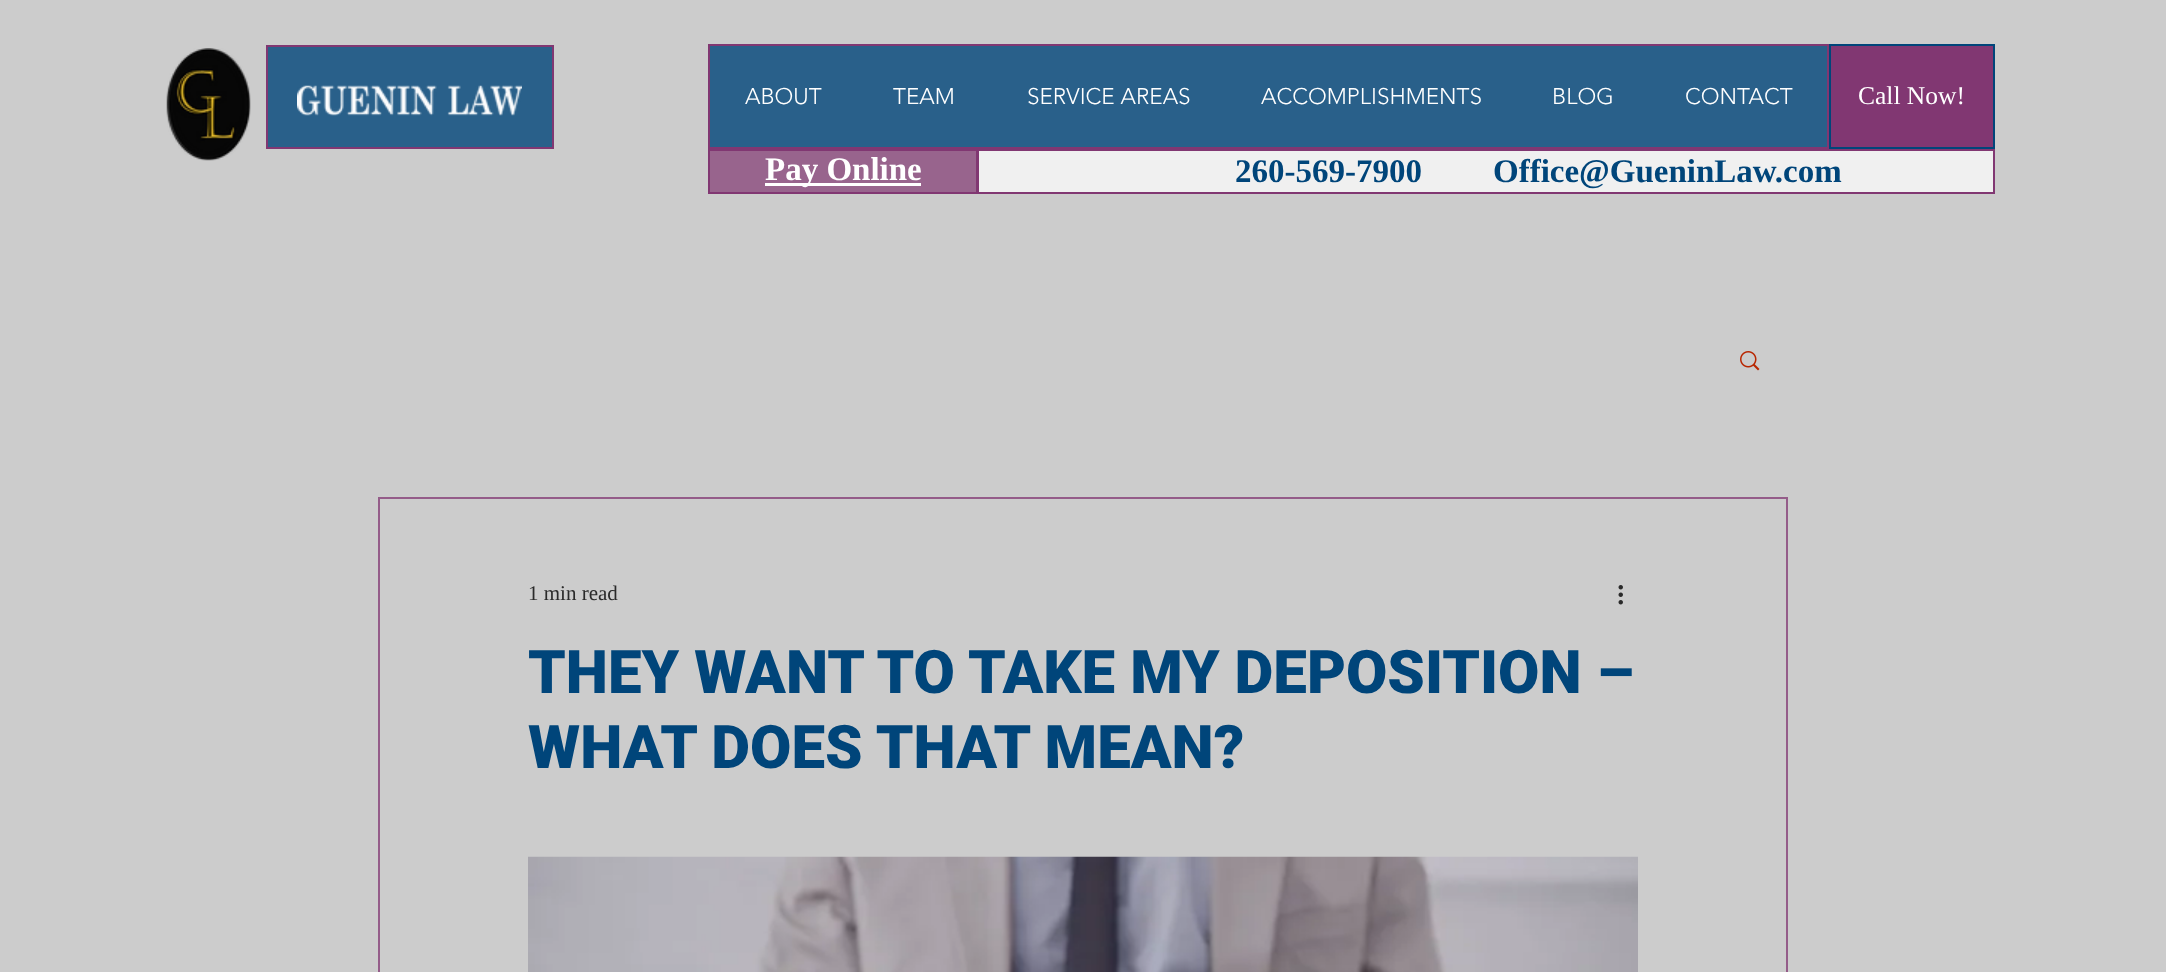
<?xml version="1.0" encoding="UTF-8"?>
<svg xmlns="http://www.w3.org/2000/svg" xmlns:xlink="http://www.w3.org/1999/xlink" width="2166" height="972">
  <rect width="100%" height="100%" fill="#cccccc" />
  <image x="166" y="48" width="85" height="113" xlink:href="image1.png" />
  <rect x="267" y="46" width="286" height="102" fill="#29608a" stroke="#813772" stroke-width="2" />
  <image x="297" y="85" width="225" height="31" xlink:href="image2.png" />
  <rect x="709" y="45" width="1119" height="103" fill="#29608a" stroke="#813772" stroke-width="2" />
  <rect x="1830" y="45" width="164" height="103" fill="#813772" stroke="#00457a" stroke-width="2" />
  <rect x="978" y="150" width="1016" height="43" fill="#f0f0f0" stroke="#813772" stroke-width="2" />
  <rect x="709" y="150" width="268" height="43" fill="#813772" fill-opacity="0.7" stroke="#813772" stroke-width="2" />
  <rect x="765" y="183" width="156" height="3" fill="#ffffff" />
  <image x="1740" y="351" width="20" height="20" xlink:href="image3.png" />
  <rect x="379" y="498" width="1408" height="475" fill="none" stroke="#945c89" stroke-width="2" />
  <image x="1618" y="585" width="5" height="20" xlink:href="image4.png" />
  <image x="528" y="856" width="1110" height="116" xlink:href="image5.png" />
  <text x="745" y="104" style="font-family: 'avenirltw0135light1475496'; font-size: 22.5px; font-weight: 300; fill: #ffffff">ABOUT</text>
  <text x="893" y="104" style="font-family: 'avenirltw0135light1475496'; font-size: 22.5px; font-weight: 300; fill: #ffffff">TEAM</text>
  <text x="1027" y="104" style="font-family: 'avenirltw0135light1475496'; font-size: 22.5px; font-weight: 300; fill: #ffffff">SERVICE AREAS</text>
  <text x="1261" y="104" style="font-family: 'avenirltw0135light1475496'; font-size: 22.5px; font-weight: 300; fill: #ffffff">ACCOMPLISHMENTS</text>
  <text x="1552" y="104" style="font-family: 'avenirltw0135light1475496'; font-size: 22.5px; font-weight: 300; fill: #ffffff">BLOG</text>
  <text x="1685" y="104" style="font-family: 'avenirltw0135light1475496'; font-size: 22.5px; font-weight: 300; fill: #ffffff">CONTACT</text>
  <text x="1858" y="104" style="font-family: Liberation Serif; font-size: 25.5px; fill: #ffffff">Call Now!</text>
  <text x="765" y="180" style="font-family: Liberation Serif; font-size: 33px; font-weight: bold; fill: #ffffff">Pay Online</text>
  <text x="1235" y="182" style="font-family: Liberation Serif; font-size: 33px; font-weight: bold; fill: #00457a">260-569-7900</text>
  <text x="1493" y="182" style="font-family: Liberation Serif; font-size: 33px; font-weight: bold; fill: #00457a">Office@GueninLaw.com</text>
  <text x="528" y="600" style="font-family: Liberation Serif; font-size: 21px; fill: #2a2a2a">1 min read</text>
  <text x="528" y="693" style="font-family: Roboto; font-size: 60px; font-weight: 900; fill: #00457a">THEY WANT TO TAKE MY DEPOSITION –</text>
  <text x="528" y="768" style="font-family: Roboto; font-size: 60px; font-weight: 900; fill: #00457a">WHAT DOES THAT MEAN?</text>
</svg>
